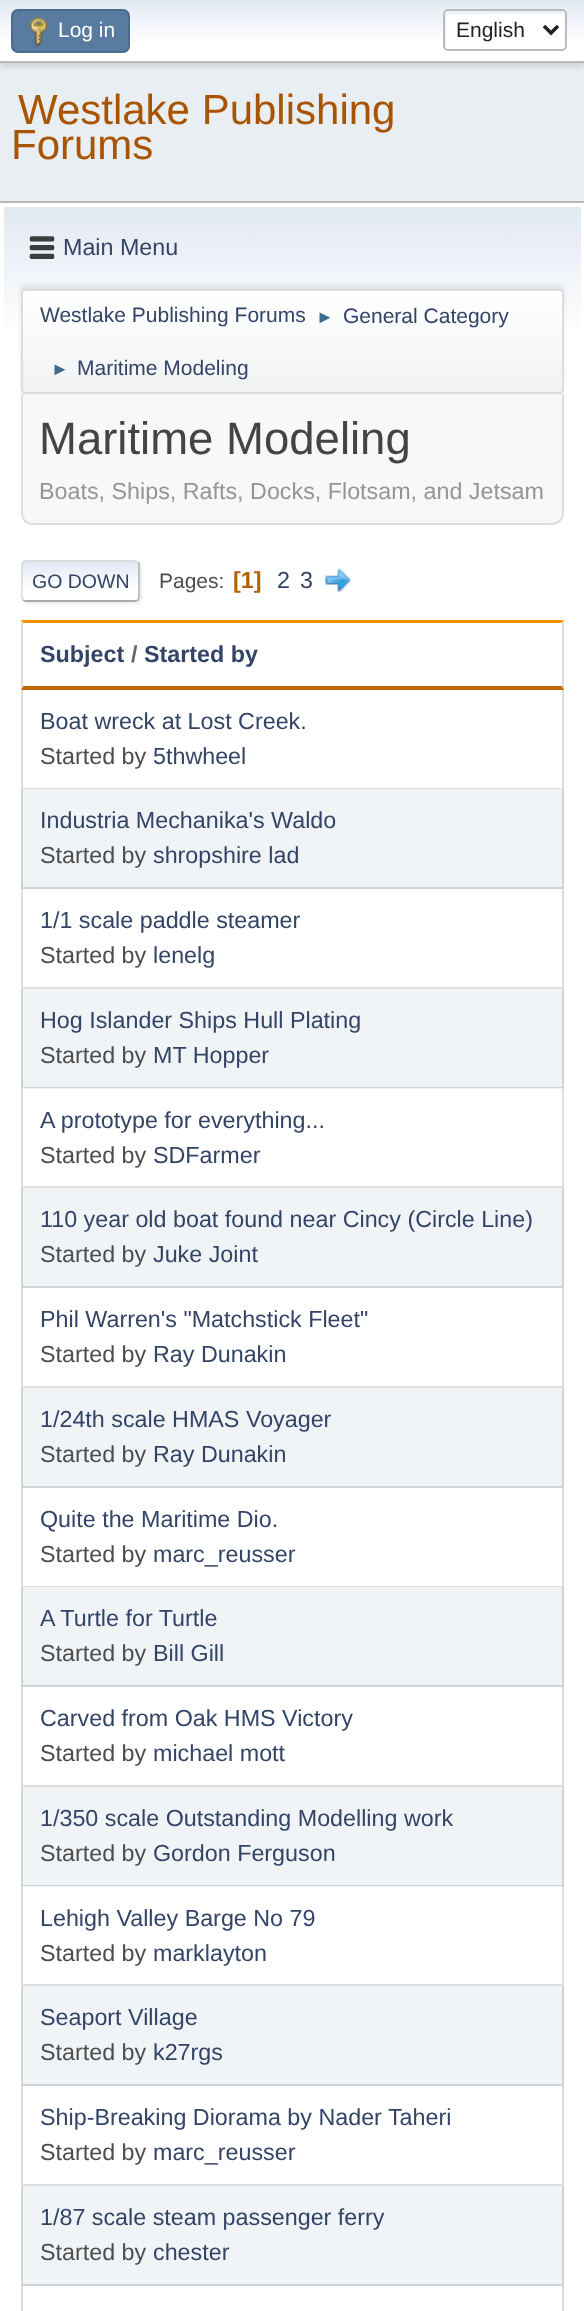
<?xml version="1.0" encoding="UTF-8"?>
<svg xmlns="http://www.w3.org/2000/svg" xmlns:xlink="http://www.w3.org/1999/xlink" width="584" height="2311">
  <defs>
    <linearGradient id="g1" gradientUnits="userSpaceOnUse" x1="292" y1="0" x2="292" y2="61"><stop offset="0" stop-color="#e2e9f3" /><stop offset="0.7" stop-color="#ffffff" /></linearGradient>
    <linearGradient id="g2" gradientUnits="userSpaceOnUse" x1="292" y1="206" x2="292" y2="397"><stop offset="0" stop-color="#e2e9f3" /><stop offset="0.7" stop-color="#ffffff" /></linearGradient>
    <clipPath id="clip1"><rect x="21" y="289" width="543" height="105" rx="4" /></clipPath>
    <linearGradient id="g3" gradientUnits="userSpaceOnUse" x1="292" y1="290" x2="292" y2="392"><stop offset="0" stop-color="#ffffff" /><stop offset="0.95" stop-color="#f1f3f5" /></linearGradient>
    <clipPath id="clip2"><rect x="21" y="560" width="119" height="42" rx="5" /></clipPath>
    <linearGradient id="g4" gradientUnits="userSpaceOnUse" x1="81" y1="562" x2="81" y2="600"><stop offset="0" stop-color="#e2e9f3" /><stop offset="0.7" stop-color="#ffffff" /></linearGradient>
    <linearGradient id="g5" gradientUnits="userSpaceOnUse" x1="81" y1="600" x2="81" y2="639"><stop offset="0" stop-color="#e2e9f3" /><stop offset="0.7" stop-color="#ffffff" /></linearGradient>
    <clipPath id="clip3"><rect x="21" y="551" width="543" height="60" /></clipPath>
  </defs>
  <rect width="100%" height="100%" fill="#e9eef2" />
  <rect y="2" width="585" height="63" fill="#000000" fill-opacity="0.16" filter="blur(3.5px)" />
  <rect width="584" height="61" fill="url(#g1)" />
  <rect y="61" width="584" height="2" fill="#bbbbbb" />
  <rect x="12" y="10" width="117" height="42" rx="6" fill="#597b9f" stroke="#4a6b8c" stroke-width="2" />
  <image x="29" y="17" width="19" height="29" xlink:href="image1.png" />
  <rect x="443" y="9" width="124" height="42" rx="5" fill="#ffffff" />
  <path d="M 450 14 c 11 0 113 -1 115 0 c 0 -2 -2 -3 -4 -3 h -112 c -2 0 -4 2 -4 4 v 30 c 0 1 0 2 1 3 v -30 c 0 -2 2 -4 4 -4 z" fill="#ecf1f8" />
  <rect x="444" y="10" width="122" height="40" rx="4" fill="none" stroke="#bbbbbb" stroke-width="2" />
  <path d="M 544 26 l 7 7 l 7 -7" fill="none" stroke="#222222" stroke-width="3.5" />
  <rect y="203" width="584" height="2108" fill="#ffffff" />
  <rect y="201" width="584" height="2" fill="#b8b8b8" />
  <rect x="4" y="207" width="577" height="121" fill="url(#g2)" />
  <image x="29" y="236" width="26" height="23" xlink:href="image2.png" />
  <rect x="21" y="285" width="543" height="105" rx="4" fill="#000000" fill-opacity="0.08" filter="blur(2px)" />
  <g clip-path="url(#clip1)">
    <rect x="21" y="291" width="543" height="101" fill="url(#g3)" />
  </g>
  <rect x="22" y="290" width="541" height="103" rx="3" fill="none" stroke="#dddddd" stroke-width="2" />
  <path d="M 21 394 h 543 v 119 c 0 6.5 -5.5 12 -12 12 h -519 c -6.5 0 -12 -5.5 -12 -12 z" fill="#f8f8f8" />
  <path d="M 21 394 h 543 v 119 c 0 7 -6 12 -13 12 h -518 c -7 0 -12 -5 -12 -12 z m 2 0 h 539 v 119 c 0 6 -5 10 -11 10 h -518 c -6 0 -10 -4 -10 -10 z" fill="#dddddd" fill-rule="evenodd" />
  <rect x="23" y="562" width="119" height="42" rx="5" fill="#dddddd" fill-opacity="0.57" filter="blur(1px)" />
  <rect x="21" y="560" width="119" height="42" rx="5" fill="#ffffff" />
  <g clip-path="url(#clip2)">
    <rect x="21" y="562" width="119" height="38" fill="url(#g4)" />
    <rect x="21" y="600" width="119" height="2" fill="url(#g5)" />
  </g>
  <path d="M 138 562 c 0.5 1 1 2 1 3 v 32 c 0 1 -0.5 2 -1 3" fill="none" stroke="#bbbbbb" stroke-width="1.8" />
  <path d="M 138 600 c -1 0.5 -2 1 -3 1 h -109 c -1 0 -2 -0.5 -3 -1" fill="none" stroke="#aaaaaa" stroke-width="1.8" />
  <g clip-path="url(#clip3)">
    <path d="M 23 600 c -2.5 -3 -1 -10.5 -1 -14 v -15.5 c 0 -3.5 -1 -9.5 4 -9.5 h 109 l 3 1" fill="none" stroke="#dddddd" stroke-width="1.8" />
  </g>
  <image x="325" y="568" width="26" height="24" xlink:href="image3.png" />
  <path d="M 21 620 h 543 l -2 3 h -539 z" fill="#ff9400" />
  <path d="M 564 620 v 70 l -2 -4 v -63 z" fill="#dddddd" />
  <path d="M 564 690 h -543 l 2 -4 h 539 z" fill="#bf6900" />
  <path d="M 21 690 v -70 l 2 3 v 63 z" fill="#dddddd" />
  <path d="M 564 690 v 99 l -2 -1 v -98 z" fill="#dcdcdc" />
  <path d="M 564 789 h -543 l 2 -1 h 539 z" fill="#000000" fill-opacity="0.13" />
  <path d="M 21 789 v -99 h 2 v 98 z" fill="#000000" fill-opacity="0.13" />
  <rect x="21" y="789" width="543" height="100" fill="#f0f4f7" />
  <path d="M 564 789 v 100 l -2 -2 v -98 z" fill="#d1d4d7" />
  <path d="M 564 889 h -543 l 2 -2 h 539 z" fill="#000000" fill-opacity="0.13" />
  <path d="M 21 889 v -100 h 2 v 98 z" fill="#000000" fill-opacity="0.13" />
  <path d="M 564 889 v 100 l -2 -2 v -98 z" fill="#dcdcdc" />
  <path d="M 564 989 h -543 l 2 -2 h 539 z" fill="#000000" fill-opacity="0.13" />
  <path d="M 21 989 v -100 h 2 v 98 z" fill="#000000" fill-opacity="0.13" />
  <rect x="21" y="989" width="543" height="100" fill="#f0f4f7" />
  <path d="M 564 989 v 99 l -2 -1 v -98 z" fill="#d1d4d7" />
  <path d="M 564 1088 h -543 l 2 -1 h 539 z" fill="#000000" fill-opacity="0.13" />
  <path d="M 21 1088 v -99 h 2 v 98 z" fill="#000000" fill-opacity="0.13" />
  <path d="M 564 1088 v 100 l -2 -2 v -98 z" fill="#000000" fill-opacity="0.13" />
  <path d="M 564 1188 h -543 l 2 -2 h 539 z" fill="#000000" fill-opacity="0.13" />
  <path d="M 21 1188 v -100 h 2 v 98 z" fill="#000000" fill-opacity="0.13" />
  <rect x="21" y="1188" width="543" height="100" fill="#f0f4f7" />
  <path d="M 564 1188 v 100 l -2 -2 v -98 z" fill="#d1d4d7" />
  <path d="M 564 1288 h -543 l 2 -2 h 539 z" fill="#000000" fill-opacity="0.13" />
  <path d="M 21 1288 v -100 h 2 v 98 z" fill="#000000" fill-opacity="0.13" />
  <path d="M 564 1288 v 100 l -2 -2 v -98 z" fill="#dcdcdc" />
  <path d="M 564 1388 h -543 l 2 -2 h 539 z" fill="#000000" fill-opacity="0.13" />
  <path d="M 21 1388 v -100 h 2 v 98 z" fill="#000000" fill-opacity="0.13" />
  <rect x="21" y="1388" width="543" height="100" fill="#f0f4f7" />
  <path d="M 564 1388 v 100 l -2 -2 v -98 z" fill="#d1d4d7" />
  <path d="M 564 1488 h -543 l 2 -2 h 539 z" fill="#000000" fill-opacity="0.13" />
  <path d="M 21 1488 v -100 h 2 v 98 z" fill="#000000" fill-opacity="0.13" />
  <path d="M 564 1488 v 99 l -2 -1 v -98 z" fill="#dcdcdc" />
  <path d="M 564 1587 h -543 l 2 -1 h 539 z" fill="#000000" fill-opacity="0.13" />
  <path d="M 21 1587 v -99 h 2 v 98 z" fill="#000000" fill-opacity="0.13" />
  <rect x="21" y="1587" width="543" height="100" fill="#f0f4f7" />
  <path d="M 564 1587 v 100 l -2 -2 v -98 z" fill="#d1d4d7" />
  <path d="M 564 1687 h -543 l 2 -2 h 539 z" fill="#000000" fill-opacity="0.13" />
  <path d="M 21 1687 v -100 h 2 v 98 z" fill="#000000" fill-opacity="0.13" />
  <path d="M 564 1687 v 100 l -2 -2 v -98 z" fill="#dcdcdc" />
  <path d="M 564 1787 h -543 l 2 -2 h 539 z" fill="#000000" fill-opacity="0.13" />
  <path d="M 21 1787 v -100 h 2 v 98 z" fill="#000000" fill-opacity="0.13" />
  <rect x="21" y="1787" width="543" height="100" fill="#f0f4f7" />
  <path d="M 564 1787 v 99 l -2 -1 v -98 z" fill="#d1d4d7" />
  <path d="M 564 1886 h -543 l 2 -1 h 539 z" fill="#000000" fill-opacity="0.13" />
  <path d="M 21 1886 v -99 h 2 v 98 z" fill="#000000" fill-opacity="0.13" />
  <path d="M 564 1886 v 100 l -2 -2 v -98 z" fill="#000000" fill-opacity="0.13" />
  <path d="M 564 1986 h -543 l 2 -2 h 539 z" fill="#000000" fill-opacity="0.13" />
  <path d="M 21 1986 v -100 h 2 v 98 z" fill="#000000" fill-opacity="0.13" />
  <rect x="21" y="1986" width="543" height="100" fill="#f0f4f7" />
  <path d="M 564 1986 v 100 l -2 -2 v -98 z" fill="#d1d4d7" />
  <path d="M 564 2086 h -543 l 2 -2 h 539 z" fill="#000000" fill-opacity="0.13" />
  <path d="M 21 2086 v -100 h 2 v 98 z" fill="#000000" fill-opacity="0.13" />
  <path d="M 564 2086 v 100 l -2 -2 v -98 z" fill="#dcdcdc" />
  <path d="M 564 2186 h -543 l 2 -2 h 539 z" fill="#000000" fill-opacity="0.13" />
  <path d="M 21 2186 v -100 h 2 v 98 z" fill="#000000" fill-opacity="0.13" />
  <rect x="21" y="2186" width="543" height="100" fill="#f0f4f7" />
  <path d="M 564 2186 v 100 l -2 -2 v -98 z" fill="#d1d4d7" />
  <path d="M 564 2286 h -543 l 2 -2 h 539 z" fill="#000000" fill-opacity="0.13" />
  <path d="M 21 2286 v -100 h 2 v 98 z" fill="#000000" fill-opacity="0.13" />
  <path d="M 564 2286 v 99 l -2 -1 v -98 z" fill="#dcdcdc" />
  <path d="M 21 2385 v -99 h 2 v 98 z" fill="#dcdcdc" />
  <text x="58" y="37" style="font-family: Liberation Sans; font-size: 21px; fill: #ffffff">Log in</text>
  <text x="456" y="37" style="font-family: Liberation Sans; font-size: 21px; fill: #222222">English</text>
  <text x="18" y="124" style="font-family: Liberation Sans; font-size: 42px; fill: #a85400">Westlake Publishing</text>
  <text x="11" y="159" style="font-family: Liberation Sans; font-size: 42px; fill: #a85400">Forums</text>
  <text x="63" y="255" style="font-family: Liberation Sans; font-size: 23.3px; fill: #334466">Main Menu</text>
  <text x="40" y="322" style="font-family: Liberation Sans; font-size: 21px; fill: #334466">Westlake Publishing Forums</text>
  <text x="316" y="323" style="font-family: Liberation Sans; font-size: 18px; fill: #3f6b8c">►</text>
  <text x="343" y="323" style="font-family: Liberation Sans; font-size: 21px; fill: #334466">General Category</text>
  <text x="51" y="375" style="font-family: Liberation Sans; font-size: 18px; fill: #3f6b8c">►</text>
  <text x="77" y="375" style="font-family: Liberation Sans; font-size: 21px; fill: #334466">Maritime Modeling</text>
  <text x="39" y="454" style="font-family: Liberation Sans; font-size: 45.5px; fill: #444444">Maritime Modeling</text>
  <text x="39" y="499" style="font-family: Liberation Sans; font-size: 23.3px; fill: #959595">Boats, Ships, Rafts, Docks, Flotsam, and Jetsam</text>
  <text x="32" y="588" style="font-family: Liberation Sans; font-size: 19.5px; fill: #334466">GO DOWN</text>
  <text x="159" y="588" style="font-family: Liberation Sans; font-size: 21px; fill: #4d4d4d">Pages:</text>
  <text x="233" y="588" style="font-family: Liberation Sans; font-size: 23.3px; font-weight: bold; fill: #b46100">[1]</text>
  <text x="277" y="588" style="font-family: Liberation Sans; font-size: 23.3px; fill: #334466">2</text>
  <text x="300" y="588" style="font-family: Liberation Sans; font-size: 23.3px; fill: #334466">3</text>
  <text x="40" y="662" style="font-family: Liberation Sans; font-size: 23.3px; font-weight: bold; fill: #334466">Subject</text>
  <text x="131" y="662" style="font-family: Liberation Sans; font-size: 23.3px; font-weight: bold; fill: #666666">/</text>
  <text x="144" y="662" style="font-family: Liberation Sans; font-size: 23.3px; font-weight: bold; fill: #334466">Started by</text>
  <text x="40" y="729" style="font-family: Liberation Sans; font-size: 23.3px; fill: #334466">Boat wreck at Lost Creek.</text>
  <text x="40" y="764" style="font-family: Liberation Sans; font-size: 23.3px; fill: #4d4d4d">Started by</text>
  <text x="153" y="764" style="font-family: Liberation Sans; font-size: 23.3px; fill: #334466">5thwheel</text>
  <text x="40" y="828" style="font-family: Liberation Sans; font-size: 23.3px; fill: #334466">Industria Mechanika's Waldo</text>
  <text x="40" y="863" style="font-family: Liberation Sans; font-size: 23.3px; fill: #4d4d4d">Started by</text>
  <text x="153" y="863" style="font-family: Liberation Sans; font-size: 23.3px; fill: #334466">shropshire lad</text>
  <text x="40" y="928" style="font-family: Liberation Sans; font-size: 23.3px; fill: #334466">1/1 scale paddle steamer</text>
  <text x="40" y="963" style="font-family: Liberation Sans; font-size: 23.3px; fill: #4d4d4d">Started by</text>
  <text x="153" y="963" style="font-family: Liberation Sans; font-size: 23.3px; fill: #334466">lenelg</text>
  <text x="40" y="1028" style="font-family: Liberation Sans; font-size: 23.3px; fill: #334466">Hog Islander Ships Hull Plating</text>
  <text x="40" y="1063" style="font-family: Liberation Sans; font-size: 23.3px; fill: #4d4d4d">Started by</text>
  <text x="153" y="1063" style="font-family: Liberation Sans; font-size: 23.3px; fill: #334466">MT Hopper</text>
  <text x="40" y="1128" style="font-family: Liberation Sans; font-size: 23.3px; fill: #334466">A prototype for everything...</text>
  <text x="40" y="1163" style="font-family: Liberation Sans; font-size: 23.3px; fill: #4d4d4d">Started by</text>
  <text x="153" y="1163" style="font-family: Liberation Sans; font-size: 23.3px; fill: #334466">SDFarmer</text>
  <text x="40" y="1227" style="font-family: Liberation Sans; font-size: 23.3px; fill: #334466">110 year old boat found near Cincy (Circle Line)</text>
  <text x="40" y="1262" style="font-family: Liberation Sans; font-size: 23.3px; fill: #4d4d4d">Started by</text>
  <text x="153" y="1262" style="font-family: Liberation Sans; font-size: 23.3px; fill: #334466">Juke Joint</text>
  <text x="40" y="1327" style="font-family: Liberation Sans; font-size: 23.3px; fill: #334466">Phil Warren's "Matchstick Fleet"</text>
  <text x="40" y="1362" style="font-family: Liberation Sans; font-size: 23.3px; fill: #4d4d4d">Started by</text>
  <text x="153" y="1362" style="font-family: Liberation Sans; font-size: 23.3px; fill: #334466">Ray Dunakin</text>
  <text x="40" y="1427" style="font-family: Liberation Sans; font-size: 23.3px; fill: #334466">1/24th scale HMAS Voyager</text>
  <text x="40" y="1462" style="font-family: Liberation Sans; font-size: 23.3px; fill: #4d4d4d">Started by</text>
  <text x="153" y="1462" style="font-family: Liberation Sans; font-size: 23.3px; fill: #334466">Ray Dunakin</text>
  <text x="40" y="1527" style="font-family: Liberation Sans; font-size: 23.3px; fill: #334466">Quite the Maritime Dio.</text>
  <text x="40" y="1562" style="font-family: Liberation Sans; font-size: 23.3px; fill: #4d4d4d">Started by</text>
  <text x="153" y="1562" style="font-family: Liberation Sans; font-size: 23.3px; fill: #334466">marc_reusser</text>
  <text x="40" y="1626" style="font-family: Liberation Sans; font-size: 23.3px; fill: #334466">A Turtle for Turtle</text>
  <text x="40" y="1661" style="font-family: Liberation Sans; font-size: 23.3px; fill: #4d4d4d">Started by</text>
  <text x="153" y="1661" style="font-family: Liberation Sans; font-size: 23.3px; fill: #334466">Bill Gill</text>
  <text x="40" y="1726" style="font-family: Liberation Sans; font-size: 23.3px; fill: #334466">Carved from Oak HMS Victory</text>
  <text x="40" y="1761" style="font-family: Liberation Sans; font-size: 23.3px; fill: #4d4d4d">Started by</text>
  <text x="153" y="1761" style="font-family: Liberation Sans; font-size: 23.3px; fill: #334466">michael mott</text>
  <text x="40" y="1826" style="font-family: Liberation Sans; font-size: 23.3px; fill: #334466">1/350 scale Outstanding Modelling work</text>
  <text x="40" y="1861" style="font-family: Liberation Sans; font-size: 23.3px; fill: #4d4d4d">Started by</text>
  <text x="153" y="1861" style="font-family: Liberation Sans; font-size: 23.3px; fill: #334466">Gordon Ferguson</text>
  <text x="40" y="1926" style="font-family: Liberation Sans; font-size: 23.3px; fill: #334466">Lehigh Valley Barge No 79</text>
  <text x="40" y="1961" style="font-family: Liberation Sans; font-size: 23.3px; fill: #4d4d4d">Started by</text>
  <text x="153" y="1961" style="font-family: Liberation Sans; font-size: 23.3px; fill: #334466">marklayton</text>
  <text x="40" y="2025" style="font-family: Liberation Sans; font-size: 23.3px; fill: #334466">Seaport Village</text>
  <text x="40" y="2060" style="font-family: Liberation Sans; font-size: 23.3px; fill: #4d4d4d">Started by</text>
  <text x="153" y="2060" style="font-family: Liberation Sans; font-size: 23.3px; fill: #334466">k27rgs</text>
  <text x="40" y="2125" style="font-family: Liberation Sans; font-size: 23.3px; fill: #334466">Ship-Breaking Diorama by Nader Taheri</text>
  <text x="40" y="2160" style="font-family: Liberation Sans; font-size: 23.3px; fill: #4d4d4d">Started by</text>
  <text x="153" y="2160" style="font-family: Liberation Sans; font-size: 23.3px; fill: #334466">marc_reusser</text>
  <text x="40" y="2225" style="font-family: Liberation Sans; font-size: 23.3px; fill: #334466">1/87 scale steam passenger ferry</text>
  <text x="40" y="2260" style="font-family: Liberation Sans; font-size: 23.3px; fill: #4d4d4d">Started by</text>
  <text x="153" y="2260" style="font-family: Liberation Sans; font-size: 23.3px; fill: #334466">chester</text>
</svg>
